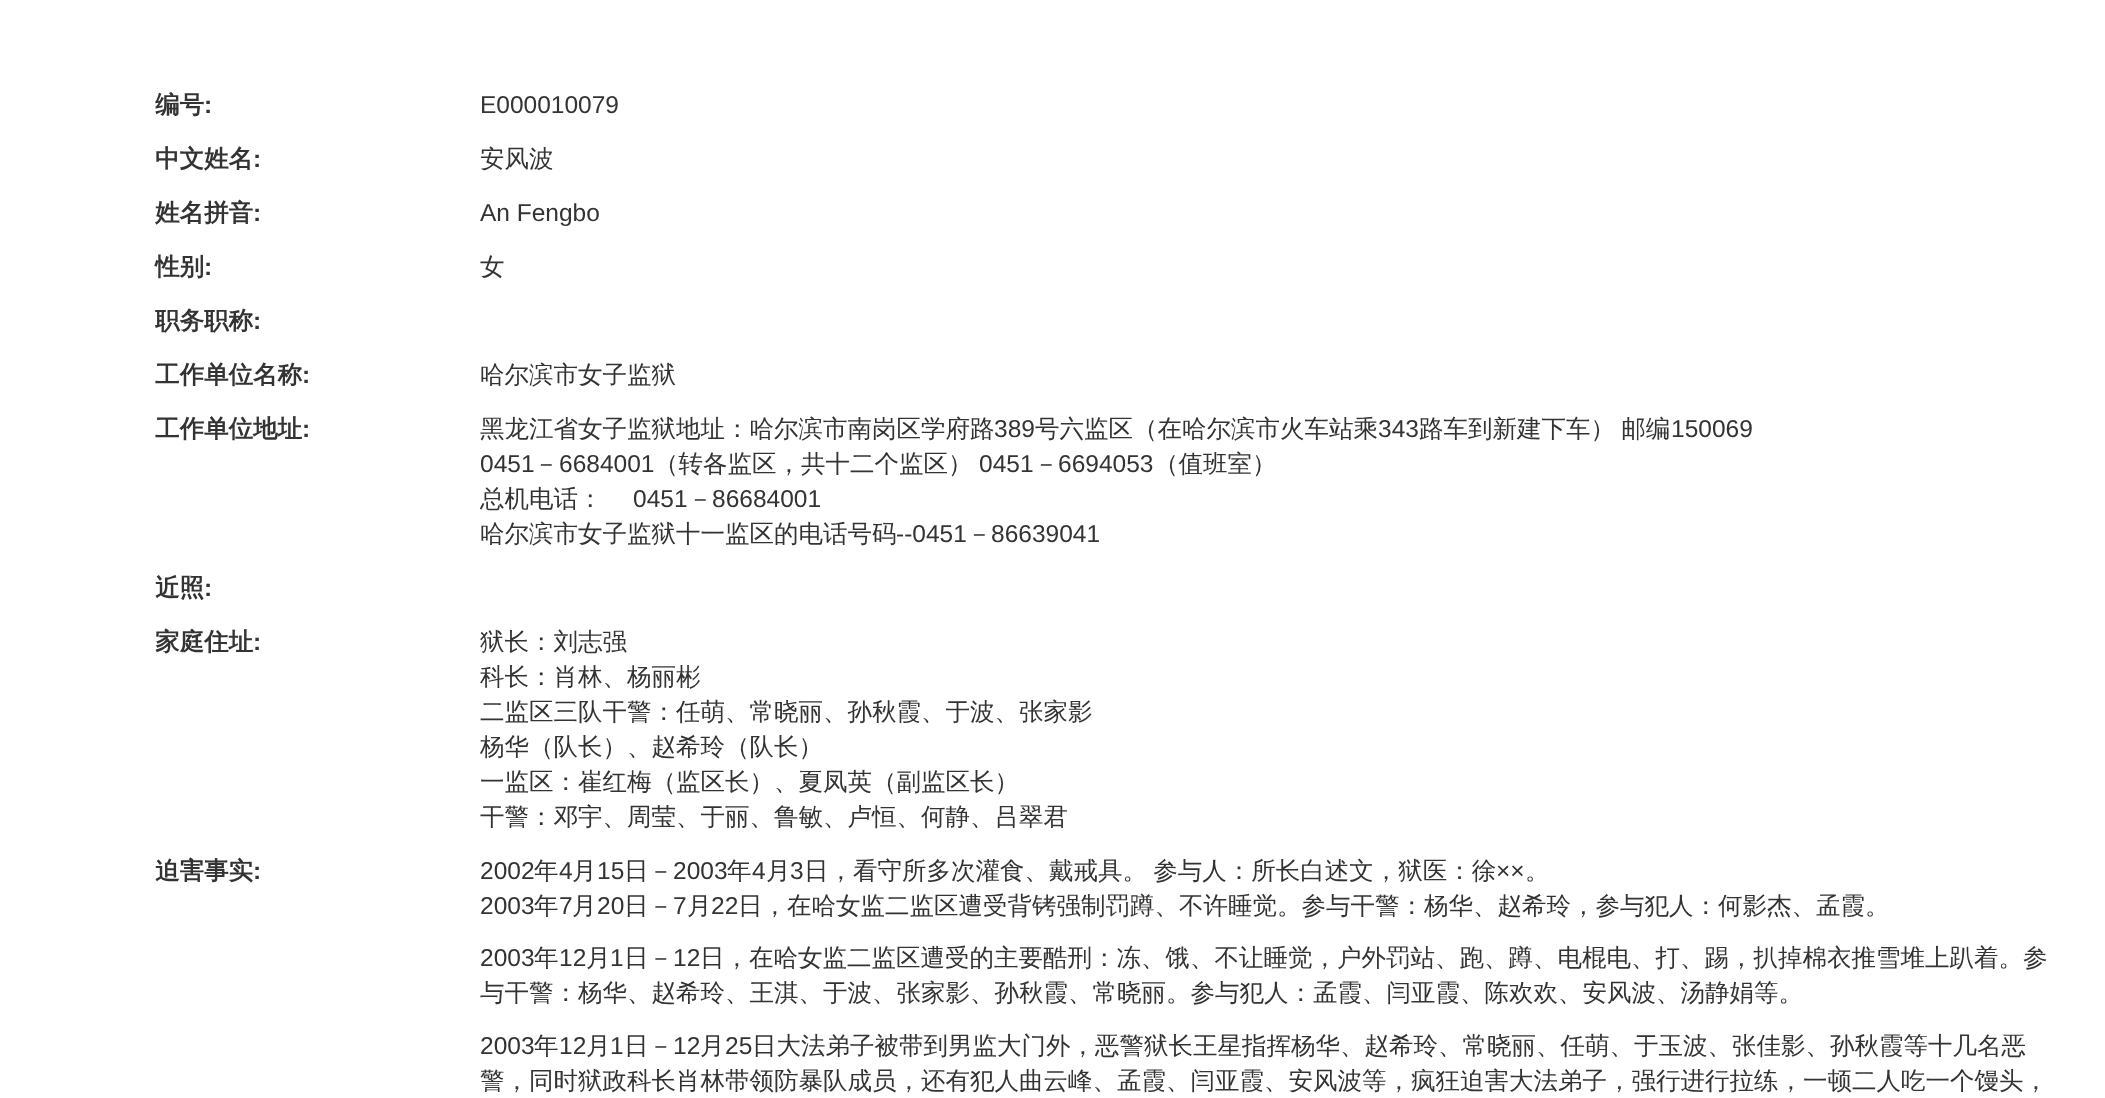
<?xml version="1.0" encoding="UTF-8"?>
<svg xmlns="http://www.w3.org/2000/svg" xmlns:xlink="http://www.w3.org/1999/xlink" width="2105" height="1098">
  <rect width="100%" height="100%" fill="#ffffff" />
  <text x="155" y="113" style="font-family: WenQuanYi Zen Hei; font-size: 24.5px; font-weight: bold; fill: #333333">编号</text>
  <text x="204" y="113" style="font-family: Liberation Sans; font-size: 24.5px; font-weight: bold; fill: #333333">:</text>
  <text x="480" y="113" style="font-family: Liberation Sans; font-size: 24.5px; fill: #333333">E000010079</text>
  <text x="155" y="167" style="font-family: WenQuanYi Zen Hei; font-size: 24.5px; font-weight: bold; fill: #333333">中文姓名</text>
  <text x="253" y="167" style="font-family: Liberation Sans; font-size: 24.5px; font-weight: bold; fill: #333333">:</text>
  <text x="480" y="167" style="font-family: WenQuanYi Zen Hei; font-size: 24.5px; font-weight: 500; fill: #333333">安风波</text>
  <text x="155" y="221" style="font-family: WenQuanYi Zen Hei; font-size: 24.5px; font-weight: bold; fill: #333333">姓名拼音</text>
  <text x="253" y="221" style="font-family: Liberation Sans; font-size: 24.5px; font-weight: bold; fill: #333333">:</text>
  <text x="480" y="221" style="font-family: Liberation Sans; font-size: 24.5px; fill: #333333">An Fengbo</text>
  <text x="155" y="275" style="font-family: WenQuanYi Zen Hei; font-size: 24.5px; font-weight: bold; fill: #333333">性别</text>
  <text x="204" y="275" style="font-family: Liberation Sans; font-size: 24.5px; font-weight: bold; fill: #333333">:</text>
  <text x="480" y="275" style="font-family: WenQuanYi Zen Hei; font-size: 24.5px; font-weight: 500; fill: #333333">女</text>
  <text x="155" y="329" style="font-family: WenQuanYi Zen Hei; font-size: 24.5px; font-weight: bold; fill: #333333">职务职称</text>
  <text x="253" y="329" style="font-family: Liberation Sans; font-size: 24.5px; font-weight: bold; fill: #333333">:</text>
  <text x="155" y="383" style="font-family: WenQuanYi Zen Hei; font-size: 24.5px; font-weight: bold; fill: #333333">工作单位名称</text>
  <text x="302" y="383" style="font-family: Liberation Sans; font-size: 24.5px; font-weight: bold; fill: #333333">:</text>
  <text x="480" y="383" style="font-family: WenQuanYi Zen Hei; font-size: 24.5px; font-weight: 500; fill: #333333">哈尔滨市女子监狱</text>
  <text x="155" y="437" style="font-family: WenQuanYi Zen Hei; font-size: 24.5px; font-weight: bold; fill: #333333">工作单位地址</text>
  <text x="302" y="437" style="font-family: Liberation Sans; font-size: 24.5px; font-weight: bold; fill: #333333">:</text>
  <text x="480" y="437" style="font-family: WenQuanYi Zen Hei; font-size: 24.5px; font-weight: 500; fill: #333333">黑龙江省女子监狱地址：哈尔滨市南岗区学府路</text>
  <text x="994" y="437" style="font-family: Liberation Sans; font-size: 24.5px; fill: #333333">389</text>
  <text x="1035" y="437" style="font-family: WenQuanYi Zen Hei; font-size: 24.5px; font-weight: 500; fill: #333333">号六监区（在哈尔滨市火车站乘</text>
  <text x="1378" y="437" style="font-family: Liberation Sans; font-size: 24.5px; fill: #333333">343</text>
  <text x="1419" y="437" word-spacing="-1" style="font-family: WenQuanYi Zen Hei; font-size: 24.5px; font-weight: 500; fill: #333333">路车到新建下车） 邮编</text>
  <text x="1671" y="437" style="font-family: Liberation Sans; font-size: 24.5px; fill: #333333">150069</text>
  <text x="480" y="472" style="font-family: Liberation Sans; font-size: 24.5px; fill: #333333">0451</text>
  <text x="534" y="472" style="font-family: WenQuanYi Zen Hei; font-size: 24.5px; font-weight: 500; fill: #333333">－</text>
  <text x="559" y="472" style="font-family: Liberation Sans; font-size: 24.5px; fill: #333333">6684001</text>
  <text x="654" y="472" style="font-family: WenQuanYi Zen Hei; font-size: 24.5px; font-weight: 500; fill: #333333">（转各监区，共十二个监区）</text>
  <text x="979" y="472" style="font-family: Liberation Sans; font-size: 24.5px; fill: #333333">0451</text>
  <text x="1034" y="472" style="font-family: WenQuanYi Zen Hei; font-size: 24.5px; font-weight: 500; fill: #333333">－</text>
  <text x="1058" y="472" style="font-family: Liberation Sans; font-size: 24.5px; fill: #333333">6694053</text>
  <text x="1154" y="472" style="font-family: WenQuanYi Zen Hei; font-size: 24.5px; font-weight: 500; fill: #333333">（值班室）</text>
  <text x="480" y="507" style="font-family: WenQuanYi Zen Hei; font-size: 24.5px; font-weight: 500; fill: #333333">总机电话：</text>
  <text x="633" y="507" style="font-family: Liberation Sans; font-size: 24.5px; fill: #333333">0451</text>
  <text x="688" y="507" style="font-family: WenQuanYi Zen Hei; font-size: 24.5px; font-weight: 500; fill: #333333">－</text>
  <text x="712" y="507" style="font-family: Liberation Sans; font-size: 24.5px; fill: #333333">86684001</text>
  <text x="480" y="542" style="font-family: WenQuanYi Zen Hei; font-size: 24.5px; font-weight: 500; fill: #333333">哈尔滨市女子监狱十一监区的电话号码</text>
  <text x="896" y="542" style="font-family: Liberation Sans; font-size: 24.5px; fill: #333333">--0451</text>
  <text x="967" y="542" style="font-family: WenQuanYi Zen Hei; font-size: 24.5px; font-weight: 500; fill: #333333">－</text>
  <text x="991" y="542" style="font-family: Liberation Sans; font-size: 24.5px; fill: #333333">86639041</text>
  <text x="155" y="596" style="font-family: WenQuanYi Zen Hei; font-size: 24.5px; font-weight: bold; fill: #333333">近照</text>
  <text x="204" y="596" style="font-family: Liberation Sans; font-size: 24.5px; font-weight: bold; fill: #333333">:</text>
  <text x="155" y="650" style="font-family: WenQuanYi Zen Hei; font-size: 24.5px; font-weight: bold; fill: #333333">家庭住址</text>
  <text x="253" y="650" style="font-family: Liberation Sans; font-size: 24.5px; font-weight: bold; fill: #333333">:</text>
  <text x="480" y="650" style="font-family: WenQuanYi Zen Hei; font-size: 24.5px; font-weight: 500; fill: #333333">狱长：刘志强</text>
  <text x="480" y="685" style="font-family: WenQuanYi Zen Hei; font-size: 24.5px; font-weight: 500; fill: #333333">科长：肖林、杨丽彬</text>
  <text x="480" y="720" style="font-family: WenQuanYi Zen Hei; font-size: 24.5px; font-weight: 500; fill: #333333">二监区三队干警：任萌、常晓丽、孙秋霞、于波、张家影</text>
  <text x="480" y="755" style="font-family: WenQuanYi Zen Hei; font-size: 24.5px; font-weight: 500; fill: #333333">杨华（队长）、赵希玲（队长）</text>
  <text x="480" y="790" style="font-family: WenQuanYi Zen Hei; font-size: 24.5px; font-weight: 500; fill: #333333">一监区：崔红梅（监区长）、夏凤英（副监区长）</text>
  <text x="480" y="825" style="font-family: WenQuanYi Zen Hei; font-size: 24.5px; font-weight: 500; fill: #333333">干警：邓宇、周莹、于丽、鲁敏、卢恒、何静、吕翠君</text>
  <text x="155" y="879" style="font-family: WenQuanYi Zen Hei; font-size: 24.5px; font-weight: bold; fill: #333333">迫害事实</text>
  <text x="253" y="879" style="font-family: Liberation Sans; font-size: 24.5px; font-weight: bold; fill: #333333">:</text>
  <text x="480" y="879" style="font-family: Liberation Sans; font-size: 24.5px; fill: #333333">2002</text>
  <text x="534" y="879" style="font-family: WenQuanYi Zen Hei; font-size: 24.5px; font-weight: 500; fill: #333333">年</text>
  <text x="559" y="879" style="font-family: Liberation Sans; font-size: 24.5px; fill: #333333">4</text>
  <text x="572" y="879" style="font-family: WenQuanYi Zen Hei; font-size: 24.5px; font-weight: 500; fill: #333333">月</text>
  <text x="597" y="879" style="font-family: Liberation Sans; font-size: 24.5px; fill: #333333">15</text>
  <text x="624" y="879" style="font-family: WenQuanYi Zen Hei; font-size: 24.5px; font-weight: 500; fill: #333333">日－</text>
  <text x="673" y="879" style="font-family: Liberation Sans; font-size: 24.5px; fill: #333333">2003</text>
  <text x="727" y="879" style="font-family: WenQuanYi Zen Hei; font-size: 24.5px; font-weight: 500; fill: #333333">年</text>
  <text x="752" y="879" style="font-family: Liberation Sans; font-size: 24.5px; fill: #333333">4</text>
  <text x="766" y="879" style="font-family: WenQuanYi Zen Hei; font-size: 24.5px; font-weight: 500; fill: #333333">月</text>
  <text x="790" y="879" style="font-family: Liberation Sans; font-size: 24.5px; fill: #333333">3</text>
  <text x="804" y="879" word-spacing="-1" style="font-family: WenQuanYi Zen Hei; font-size: 24.5px; font-weight: 500; fill: #333333">日，看守所多次灌食、戴戒具。 参与人：所长白述文，狱医：徐</text>
  <text x="1496" y="879" style="font-family: Liberation Sans; font-size: 24.5px; fill: #333333">××</text>
  <text x="1525" y="879" style="font-family: WenQuanYi Zen Hei; font-size: 24.5px; font-weight: 500; fill: #333333">。</text>
  <text x="480" y="914" style="font-family: Liberation Sans; font-size: 24.5px; fill: #333333">2003</text>
  <text x="534" y="914" style="font-family: WenQuanYi Zen Hei; font-size: 24.5px; font-weight: 500; fill: #333333">年</text>
  <text x="559" y="914" style="font-family: Liberation Sans; font-size: 24.5px; fill: #333333">7</text>
  <text x="572" y="914" style="font-family: WenQuanYi Zen Hei; font-size: 24.5px; font-weight: 500; fill: #333333">月</text>
  <text x="597" y="914" style="font-family: Liberation Sans; font-size: 24.5px; fill: #333333">20</text>
  <text x="624" y="914" style="font-family: WenQuanYi Zen Hei; font-size: 24.5px; font-weight: 500; fill: #333333">日－</text>
  <text x="673" y="914" style="font-family: Liberation Sans; font-size: 24.5px; fill: #333333">7</text>
  <text x="687" y="914" style="font-family: WenQuanYi Zen Hei; font-size: 24.5px; font-weight: 500; fill: #333333">月</text>
  <text x="711" y="914" style="font-family: Liberation Sans; font-size: 24.5px; fill: #333333">22</text>
  <text x="738" y="914" style="font-family: WenQuanYi Zen Hei; font-size: 24.5px; font-weight: 500; fill: #333333">日，在哈女监二监区遭受背铐强制罚蹲、不许睡觉。参与干警：杨华、赵希玲，参与犯人：何影杰、孟霞。</text>
  <text x="480" y="966" style="font-family: Liberation Sans; font-size: 24.5px; fill: #333333">2003</text>
  <text x="534" y="966" style="font-family: WenQuanYi Zen Hei; font-size: 24.5px; font-weight: 500; fill: #333333">年</text>
  <text x="559" y="966" style="font-family: Liberation Sans; font-size: 24.5px; fill: #333333">12</text>
  <text x="586" y="966" style="font-family: WenQuanYi Zen Hei; font-size: 24.5px; font-weight: 500; fill: #333333">月</text>
  <text x="610" y="966" style="font-family: Liberation Sans; font-size: 24.5px; fill: #333333">1</text>
  <text x="624" y="966" style="font-family: WenQuanYi Zen Hei; font-size: 24.5px; font-weight: 500; fill: #333333">日－</text>
  <text x="673" y="966" style="font-family: Liberation Sans; font-size: 24.5px; fill: #333333">12</text>
  <text x="700" y="966" style="font-family: WenQuanYi Zen Hei; font-size: 24.5px; font-weight: 500; fill: #333333">日，在哈女监二监区遭受的主要酷刑：冻、饿、不让睡觉，户外罚站、跑、蹲、电棍电、打、踢，扒掉棉衣推雪堆上趴着。参</text>
  <text x="480" y="1001" style="font-family: WenQuanYi Zen Hei; font-size: 24.5px; font-weight: 500; fill: #333333">与干警：杨华、赵希玲、王淇、于波、张家影、孙秋霞、常晓丽。参与犯人：孟霞、闫亚霞、陈欢欢、安风波、汤静娟等。</text>
  <text x="480" y="1054" style="font-family: Liberation Sans; font-size: 24.5px; fill: #333333">2003</text>
  <text x="534" y="1054" style="font-family: WenQuanYi Zen Hei; font-size: 24.5px; font-weight: 500; fill: #333333">年</text>
  <text x="559" y="1054" style="font-family: Liberation Sans; font-size: 24.5px; fill: #333333">12</text>
  <text x="586" y="1054" style="font-family: WenQuanYi Zen Hei; font-size: 24.5px; font-weight: 500; fill: #333333">月</text>
  <text x="610" y="1054" style="font-family: Liberation Sans; font-size: 24.5px; fill: #333333">1</text>
  <text x="624" y="1054" style="font-family: WenQuanYi Zen Hei; font-size: 24.5px; font-weight: 500; fill: #333333">日－</text>
  <text x="673" y="1054" style="font-family: Liberation Sans; font-size: 24.5px; fill: #333333">12</text>
  <text x="700" y="1054" style="font-family: WenQuanYi Zen Hei; font-size: 24.5px; font-weight: 500; fill: #333333">月</text>
  <text x="725" y="1054" style="font-family: Liberation Sans; font-size: 24.5px; fill: #333333">25</text>
  <text x="752" y="1054" style="font-family: WenQuanYi Zen Hei; font-size: 24.5px; font-weight: 500; fill: #333333">日大法弟子被带到男监大门外，恶警狱长王星指挥杨华、赵希玲、常晓丽、任萌、于玉波、张佳影、孙秋霞等十几名恶</text>
  <text x="480" y="1089" style="font-family: WenQuanYi Zen Hei; font-size: 24.5px; font-weight: 500; fill: #333333">警，同时狱政科长肖林带领防暴队成员，还有犯人曲云峰、孟霞、闫亚霞、安风波等，疯狂迫害大法弟子，强行进行拉练，一顿二人吃一个馒头，</text>
</svg>
